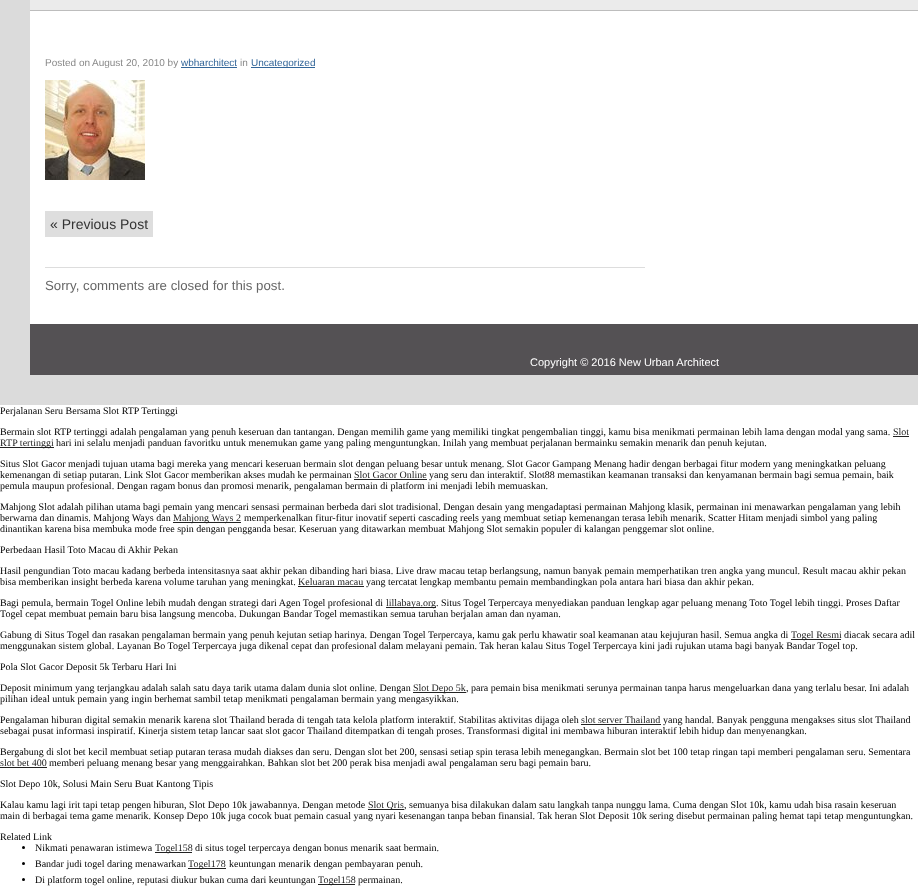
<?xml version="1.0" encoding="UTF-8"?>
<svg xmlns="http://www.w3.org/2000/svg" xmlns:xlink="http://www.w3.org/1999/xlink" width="918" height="893">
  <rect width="100%" height="100%" fill="#ffffff" />
  <rect x="15" y="-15" width="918" height="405" fill="none" stroke="#dbdbdb" stroke-width="30" />
  <rect x="30" width="888" height="10" fill="#ebebeb" />
  <rect x="30" y="10" width="888" height="1" fill="#bdbdbd" />
  <rect x="181" y="67" width="56" height="1" fill="#336699" />
  <rect x="251" y="67" width="64" height="1" fill="#336699" />
  <image x="45" y="80" width="100" height="100" xlink:href="image1.png" />
  <rect x="45" y="211" width="108" height="26" fill="#dedede" />
  <rect x="45" y="267" width="600" height="1" fill="#dddddd" />
  <rect x="30" y="324" width="888" height="51" fill="#545154" />
  <rect x="893" y="436" width="16" height="1" fill="#222222" />
  <rect y="447" width="54" height="1" fill="#222222" />
  <rect x="354" y="479" width="73" height="1" fill="#222222" />
  <rect x="173" y="522" width="68" height="1" fill="#222222" />
  <rect x="298" y="586" width="66" height="1" fill="#222222" />
  <rect x="386" y="607" width="50" height="1" fill="#222222" />
  <rect x="791" y="639" width="50" height="1" fill="#222222" />
  <rect x="413" y="692" width="53" height="1" fill="#222222" />
  <rect x="581" y="724" width="80" height="1" fill="#222222" />
  <rect y="767" width="47" height="1" fill="#222222" />
  <rect x="368" y="809" width="36" height="1" fill="#222222" />
  <circle cx="23.5" cy="847.5" r="1.5" fill="#000000" />
  <rect x="155" y="852" width="37" height="1" fill="#222222" />
  <circle cx="23.5" cy="863.5" r="1.5" fill="#000000" />
  <rect x="188" y="868" width="38" height="1" fill="#222222" />
  <circle cx="23.5" cy="879.5" r="1.5" fill="#000000" />
  <rect x="318" y="884" width="37" height="1" fill="#222222" />
  <text x="45" y="66" style="font-family: Liberation Sans; font-size: 10px; fill: #888888">Posted on</text>
  <text x="92" y="66" style="font-family: Liberation Sans; font-size: 10px; fill: #888888">August 20, 2010 by</text>
  <text x="181" y="66" style="font-family: Liberation Sans; font-size: 10px; fill: #336699">wbharchitect</text>
  <text x="240" y="66" style="font-family: Liberation Sans; font-size: 10px; fill: #888888">in</text>
  <text x="251" y="66" style="font-family: Liberation Sans; font-size: 10px; fill: #336699">Uncategorized</text>
  <text x="50" y="229" style="font-family: Liberation Sans; font-size: 14px; fill: #333333">« Previous Post</text>
  <text x="45" y="290" style="font-family: Liberation Sans; font-size: 13.25px; fill: #666666">Sorry, comments are closed for this post.</text>
  <text x="530" y="366" style="font-family: Liberation Sans; font-size: 11px; fill: #ffffff">Copyright © 2016 New Urban Architect</text>
  <text x="0" y="414" style="font-family: Liberation Serif; font-size: 10px; fill: #000000">Perjalanan Seru Bersama Slot RTP Tertinggi</text>
  <text x="0" y="435" style="font-family: Liberation Serif; font-size: 10px; fill: #000000">Bermain slot RTP tertinggi adalah pengalaman yang penuh keseruan dan tantangan. Dengan memilih game yang memiliki tingkat pengembalian tinggi, kamu bisa menikmati permainan lebih lama dengan modal yang sama.</text>
  <text x="893" y="435" style="font-family: Liberation Serif; font-size: 10px; fill: #222222">Slot</text>
  <text x="0" y="446" style="font-family: Liberation Serif; font-size: 10px; fill: #222222">RTP tertinggi</text>
  <text x="56" y="446" style="font-family: Liberation Serif; font-size: 10px; fill: #000000">hari ini selalu menjadi panduan favoritku untuk menemukan game yang paling menguntungkan. Inilah yang membuat perjalanan bermainku semakin menarik dan penuh kejutan.</text>
  <text x="0" y="467" style="font-family: Liberation Serif; font-size: 10px; fill: #000000">Situs Slot Gacor menjadi tujuan utama bagi mereka yang mencari keseruan bermain slot dengan peluang besar untuk menang. Slot Gacor Gampang Menang hadir dengan berbagai fitur modern yang meningkatkan peluang</text>
  <text x="0" y="478" style="font-family: Liberation Serif; font-size: 10px; fill: #000000">kemenangan di setiap putaran. Link Slot Gacor memberikan akses mudah ke permainan</text>
  <text x="354" y="478" style="font-family: Liberation Serif; font-size: 10px; fill: #222222">Slot Gacor Online</text>
  <text x="429" y="478" style="font-family: Liberation Serif; font-size: 10px; fill: #000000">yang seru dan interaktif. Slot88 memastikan keamanan transaksi dan kenyamanan bermain bagi semua pemain, baik</text>
  <text x="0" y="489" style="font-family: Liberation Serif; font-size: 10px; fill: #000000">pemula maupun profesional. Dengan ragam bonus dan promosi menarik, pengalaman bermain di platform ini menjadi lebih memuaskan.</text>
  <text x="0" y="510" style="font-family: Liberation Serif; font-size: 10px; fill: #000000">Mahjong Slot adalah pilihan utama bagi pemain yang mencari sensasi permainan berbeda dari slot tradisional. Dengan desain yang mengadaptasi permainan Mahjong klasik, permainan ini menawarkan pengalaman yang lebih</text>
  <text x="0" y="521" style="font-family: Liberation Serif; font-size: 10px; fill: #000000">berwarna dan dinamis. Mahjong Ways dan</text>
  <text x="173" y="521" style="font-family: Liberation Serif; font-size: 10px; fill: #222222">Mahjong Ways 2</text>
  <text x="244" y="521" style="font-family: Liberation Serif; font-size: 10px; fill: #000000">memperkenalkan fitur-fitur inovatif seperti cascading reels yang membuat setiap kemenangan terasa lebih menarik. Scatter Hitam menjadi simbol yang paling</text>
  <text x="0" y="532" style="font-family: Liberation Serif; font-size: 10px; fill: #000000">dinantikan karena bisa membuka mode free spin dengan pengganda besar. Keseruan yang ditawarkan membuat Mahjong Slot semakin populer di kalangan penggemar slot online.</text>
  <text x="0" y="553" style="font-family: Liberation Serif; font-size: 10px; fill: #000000">Perbedaan Hasil Toto Macau di Akhir Pekan</text>
  <text x="0" y="574" style="font-family: Liberation Serif; font-size: 10px; fill: #000000">Hasil pengundian Toto macau kadang berbeda intensitasnya saat akhir pekan dibanding hari biasa. Live draw macau tetap berlangsung, namun banyak pemain memperhatikan tren angka yang muncul. Result macau akhir pekan</text>
  <text x="0" y="585" style="font-family: Liberation Serif; font-size: 10px; fill: #000000">bisa memberikan insight berbeda karena volume taruhan yang meningkat.</text>
  <text x="298" y="585" style="font-family: Liberation Serif; font-size: 10px; fill: #222222">Keluaran macau</text>
  <text x="366" y="585" style="font-family: Liberation Serif; font-size: 10px; fill: #000000">yang tercatat lengkap membantu pemain membandingkan pola antara hari biasa dan akhir pekan.</text>
  <text x="0" y="606" style="font-family: Liberation Serif; font-size: 10px; fill: #000000">Bagi pemula, bermain Togel Online lebih mudah dengan strategi dari Agen Togel profesional di</text>
  <text x="386" y="606" style="font-family: Liberation Serif; font-size: 10px; fill: #222222">lillabaya.org</text>
  <text x="436" y="606" style="font-family: Liberation Serif; font-size: 10px; fill: #000000">. Situs Togel Terpercaya menyediakan panduan lengkap agar peluang menang Toto Togel lebih tinggi. Proses Daftar</text>
  <text x="0" y="617" style="font-family: Liberation Serif; font-size: 10px; fill: #000000">Togel cepat membuat pemain baru bisa langsung mencoba. Dukungan Bandar Togel memastikan semua taruhan berjalan aman dan nyaman.</text>
  <text x="0" y="638" style="font-family: Liberation Serif; font-size: 10px; fill: #000000">Gabung di Situs Togel dan rasakan pengalaman bermain yang penuh kejutan setiap harinya. Dengan Togel Terpercaya, kamu gak perlu khawatir soal keamanan atau kejujuran hasil. Semua angka di</text>
  <text x="791" y="638" style="font-family: Liberation Serif; font-size: 10px; fill: #222222">Togel Resmi</text>
  <text x="844" y="638" style="font-family: Liberation Serif; font-size: 10px; fill: #000000">diacak secara adil</text>
  <text x="0" y="649" style="font-family: Liberation Serif; font-size: 10px; fill: #000000">menggunakan sistem global. Layanan Bo Togel Terpercaya juga dikenal cepat dan profesional dalam melayani pemain. Tak heran kalau Situs Togel Terpercaya kini jadi rujukan utama bagi banyak Bandar Togel top.</text>
  <text x="0" y="670" style="font-family: Liberation Serif; font-size: 10px; fill: #000000">Pola Slot Gacor Deposit 5k Terbaru Hari Ini</text>
  <text x="0" y="691" style="font-family: Liberation Serif; font-size: 10px; fill: #000000">Deposit minimum yang terjangkau adalah salah satu daya tarik utama dalam dunia slot online. Dengan</text>
  <text x="413" y="691" style="font-family: Liberation Serif; font-size: 10px; fill: #222222">Slot Depo 5k</text>
  <text x="466" y="691" style="font-family: Liberation Serif; font-size: 10px; fill: #000000">, para pemain bisa menikmati serunya permainan tanpa harus mengeluarkan dana yang terlalu besar. Ini adalah</text>
  <text x="0" y="702" style="font-family: Liberation Serif; font-size: 10px; fill: #000000">pilihan ideal untuk pemain yang ingin berhemat sambil tetap menikmati pengalaman bermain yang mengasyikkan.</text>
  <text x="0" y="723" style="font-family: Liberation Serif; font-size: 10px; fill: #000000">Pengalaman hiburan digital semakin menarik karena slot Thailand berada di tengah tata kelola platform interaktif. Stabilitas aktivitas dijaga oleh</text>
  <text x="581" y="723" style="font-family: Liberation Serif; font-size: 10px; fill: #222222">slot server Thailand</text>
  <text x="663" y="723" style="font-family: Liberation Serif; font-size: 10px; fill: #000000">yang handal. Banyak pengguna mengakses situs slot Thailand</text>
  <text x="0" y="734" style="font-family: Liberation Serif; font-size: 10px; fill: #000000">sebagai pusat informasi inspiratif. Kinerja sistem tetap lancar saat slot gacor Thailand ditempatkan di tengah proses. Transformasi digital ini membawa hiburan interaktif lebih hidup dan menyenangkan.</text>
  <text x="0" y="755" style="font-family: Liberation Serif; font-size: 10px; fill: #000000">Bergabung di slot bet kecil membuat setiap putaran terasa mudah diakses dan seru. Dengan slot bet 200, sensasi setiap spin terasa lebih menegangkan. Bermain slot bet 100 tetap ringan tapi memberi pengalaman seru. Sementara</text>
  <text x="0" y="766" style="font-family: Liberation Serif; font-size: 10px; fill: #222222">slot bet 400</text>
  <text x="49" y="766" style="font-family: Liberation Serif; font-size: 10px; fill: #000000">memberi peluang menang besar yang menggairahkan. Bahkan slot bet 200 perak bisa menjadi awal pengalaman seru bagi pemain baru.</text>
  <text x="0" y="787" style="font-family: Liberation Serif; font-size: 10px; fill: #000000">Slot Depo 10k, Solusi Main Seru Buat Kantong Tipis</text>
  <text x="0" y="808" style="font-family: Liberation Serif; font-size: 10px; fill: #000000">Kalau kamu lagi irit tapi tetap pengen hiburan, Slot Depo 10k jawabannya. Dengan metode</text>
  <text x="368" y="808" style="font-family: Liberation Serif; font-size: 10px; fill: #222222">Slot Qris</text>
  <text x="404" y="808" style="font-family: Liberation Serif; font-size: 10px; fill: #000000">, semuanya bisa dilakukan dalam satu langkah tanpa nunggu lama. Cuma dengan Slot 10k, kamu udah bisa rasain keseruan</text>
  <text x="0" y="819" style="font-family: Liberation Serif; font-size: 10px; fill: #000000">main di berbagai tema game menarik. Konsep Depo 10k juga cocok buat pemain casual yang nyari kesenangan tanpa beban finansial. Tak heran Slot Deposit 10k sering disebut permainan paling hemat tapi tetap menguntungkan.</text>
  <text x="0" y="840" style="font-family: Liberation Serif; font-size: 10px; fill: #000000">Related Link</text>
  <text x="35" y="851" style="font-family: Liberation Serif; font-size: 10px; fill: #000000">Nikmati penawaran istimewa</text>
  <text x="155" y="851" style="font-family: Liberation Serif; font-size: 10px; fill: #222222">Togel158</text>
  <text x="195" y="851" style="font-family: Liberation Serif; font-size: 10px; fill: #000000">di situs togel terpercaya dengan bonus menarik saat bermain.</text>
  <text x="35" y="867" style="font-family: Liberation Serif; font-size: 10px; fill: #000000">Bandar judi togel daring menawarkan</text>
  <text x="188" y="867" style="font-family: Liberation Serif; font-size: 10px; fill: #222222">Togel178</text>
  <text x="229" y="867" style="font-family: Liberation Serif; font-size: 10px; fill: #000000">keuntungan menarik dengan pembayaran penuh.</text>
  <text x="35" y="883" style="font-family: Liberation Serif; font-size: 10px; fill: #000000">Di platform togel online, reputasi diukur bukan cuma dari keuntungan</text>
  <text x="318" y="883" style="font-family: Liberation Serif; font-size: 10px; fill: #222222">Togel158</text>
  <text x="358" y="883" style="font-family: Liberation Serif; font-size: 10px; fill: #000000">permainan.</text>
</svg>
